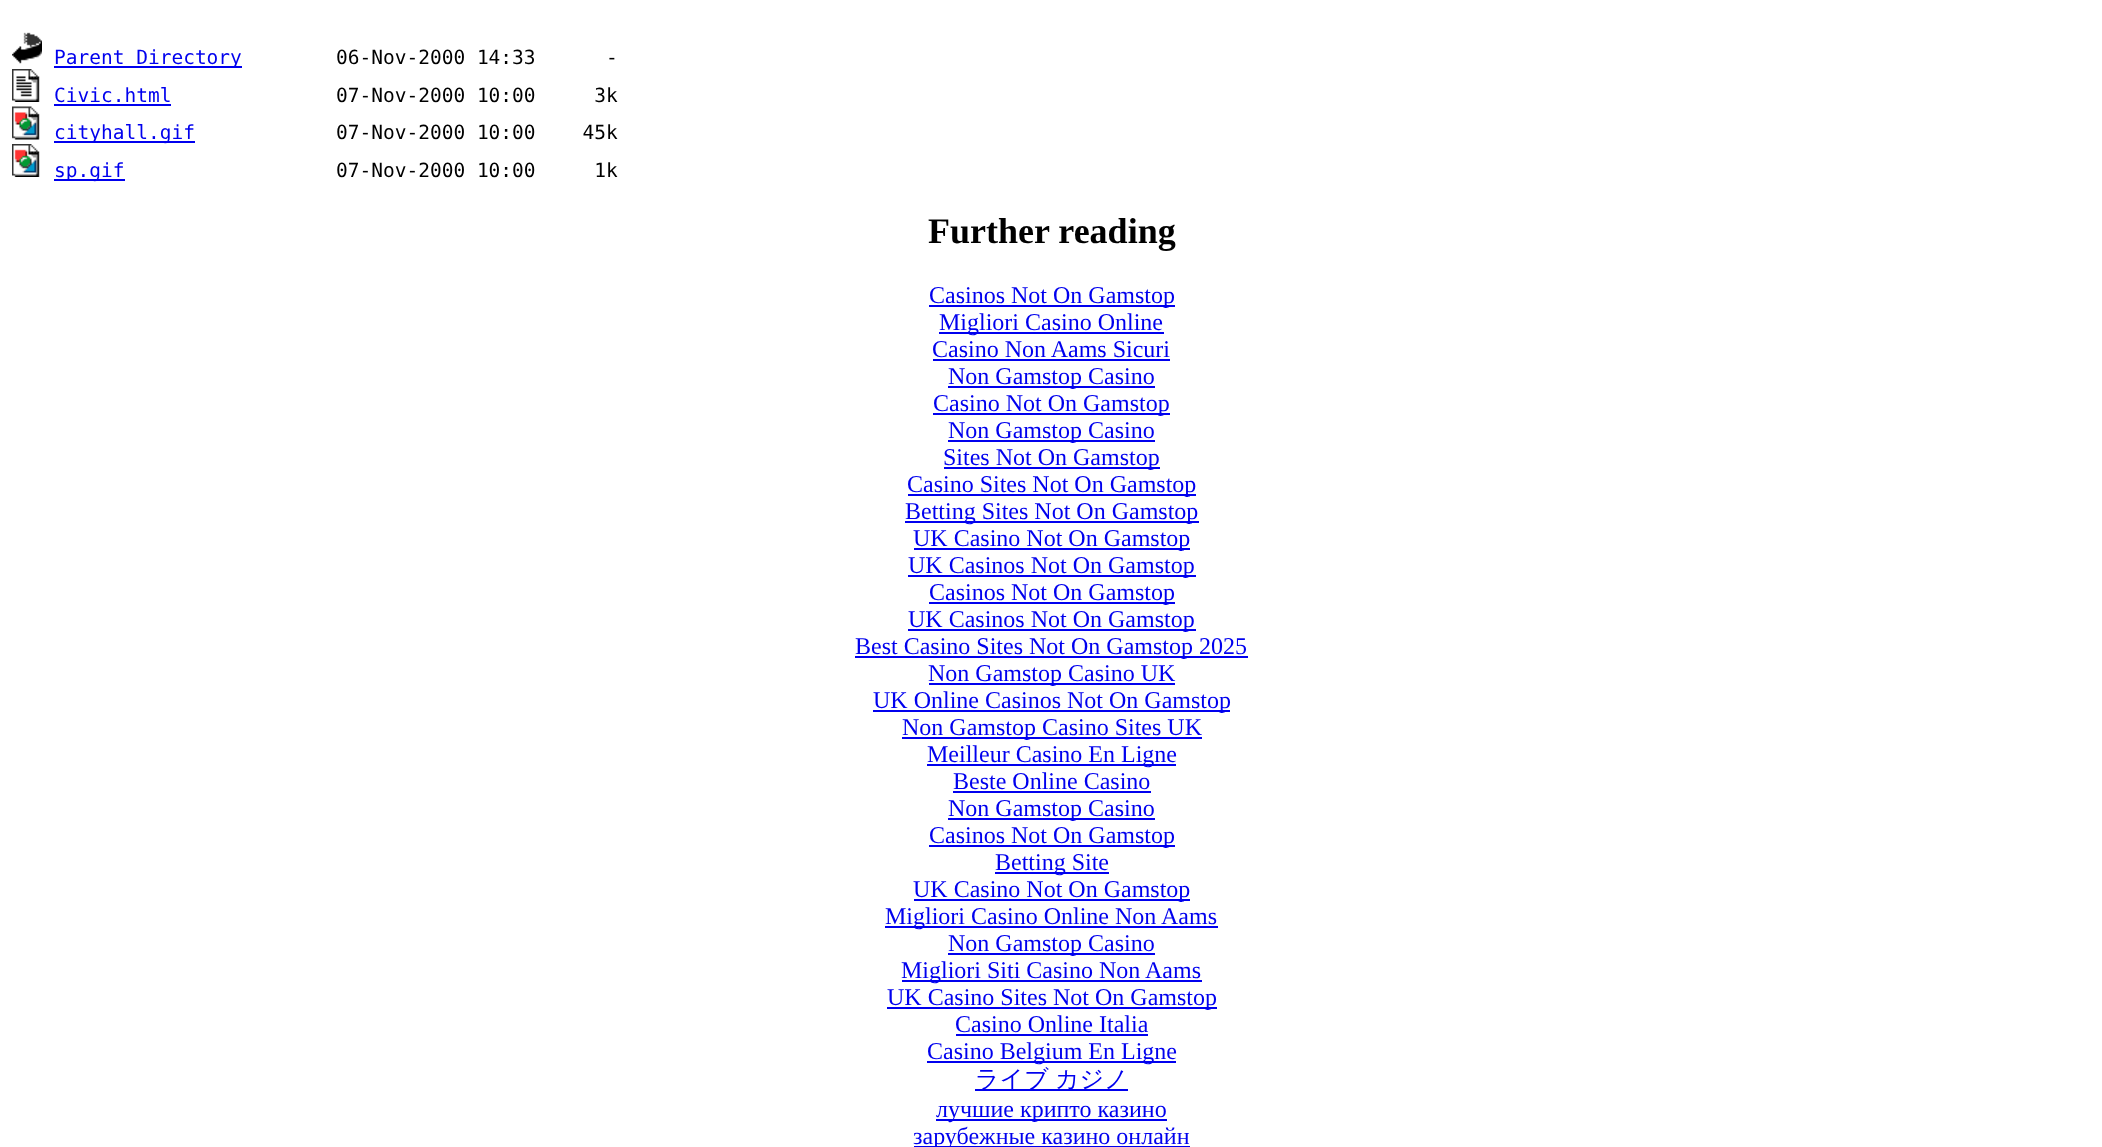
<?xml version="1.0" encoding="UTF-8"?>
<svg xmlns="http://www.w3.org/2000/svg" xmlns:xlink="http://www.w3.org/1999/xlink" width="2102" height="1147">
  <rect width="100%" height="100%" fill="#ffffff" />
  <image x="12" y="32" width="30" height="32" xlink:href="image1.png" />
  <rect x="54" y="66" width="188" height="2" fill="#0000ee" />
  <image x="12" y="69" width="28" height="33" xlink:href="image2.png" />
  <rect x="54" y="104" width="117" height="2" fill="#0000ee" />
  <image x="12" y="106" width="28" height="34" xlink:href="image3.png" />
  <rect x="54" y="141" width="141" height="2" fill="#0000ee" />
  <image x="12" y="144" width="28" height="33" xlink:href="image4.png" />
  <rect x="54" y="179" width="71" height="2" fill="#0000ee" />
  <rect x="929" y="305" width="246" height="2" fill="#0000ee" />
  <rect x="939" y="332" width="225" height="2" fill="#0000ee" />
  <rect x="933" y="359" width="237" height="2" fill="#0000ee" />
  <rect x="948" y="386" width="207" height="2" fill="#0000ee" />
  <rect x="933" y="413" width="237" height="2" fill="#0000ee" />
  <rect x="948" y="440" width="207" height="2" fill="#0000ee" />
  <rect x="944" y="467" width="216" height="2" fill="#0000ee" />
  <rect x="908" y="494" width="288" height="2" fill="#0000ee" />
  <rect x="905" y="521" width="294" height="2" fill="#0000ee" />
  <rect x="914" y="548" width="276" height="2" fill="#0000ee" />
  <rect x="908" y="575" width="288" height="2" fill="#0000ee" />
  <rect x="929" y="602" width="246" height="2" fill="#0000ee" />
  <rect x="908" y="629" width="288" height="2" fill="#0000ee" />
  <rect x="855" y="656" width="393" height="2" fill="#0000ee" />
  <rect x="929" y="683" width="246" height="2" fill="#0000ee" />
  <rect x="873" y="710" width="357" height="2" fill="#0000ee" />
  <rect x="902" y="737" width="300" height="2" fill="#0000ee" />
  <rect x="927" y="764" width="249" height="2" fill="#0000ee" />
  <rect x="953" y="791" width="198" height="2" fill="#0000ee" />
  <rect x="948" y="818" width="207" height="2" fill="#0000ee" />
  <rect x="929" y="845" width="246" height="2" fill="#0000ee" />
  <rect x="995" y="872" width="114" height="2" fill="#0000ee" />
  <rect x="914" y="899" width="276" height="2" fill="#0000ee" />
  <rect x="885" y="926" width="333" height="2" fill="#0000ee" />
  <rect x="948" y="953" width="207" height="2" fill="#0000ee" />
  <rect x="902" y="980" width="300" height="2" fill="#0000ee" />
  <rect x="887" y="1007" width="330" height="2" fill="#0000ee" />
  <rect x="956" y="1034" width="192" height="2" fill="#0000ee" />
  <rect x="927" y="1061" width="249" height="2" fill="#0000ee" />
  <rect x="975" y="1089" width="153" height="2" fill="#0000ee" />
  <rect x="936" y="1119" width="231" height="2" fill="#0000ee" />
  <rect x="914" y="1146" width="276" height="1" fill="#0000ee" />
  <text x="54" y="64" style="font-family: DejaVu Sans Mono; font-size: 19.5px; fill: #0000ee">Parent Directory</text>
  <text x="336" y="64" style="font-family: DejaVu Sans Mono; font-size: 19.5px; fill: #000000" xml:space="preserve">06-Nov-2000 14:33      -</text>
  <text x="54" y="102" style="font-family: DejaVu Sans Mono; font-size: 19.5px; fill: #0000ee">Civic.html</text>
  <text x="336" y="102" style="font-family: DejaVu Sans Mono; font-size: 19.5px; fill: #000000" xml:space="preserve">07-Nov-2000 10:00     3k</text>
  <text x="54" y="139" style="font-family: DejaVu Sans Mono; font-size: 19.5px; fill: #0000ee">cityhall.gif</text>
  <text x="336" y="139" style="font-family: DejaVu Sans Mono; font-size: 19.5px; fill: #000000" xml:space="preserve">07-Nov-2000 10:00    45k</text>
  <text x="54" y="177" style="font-family: DejaVu Sans Mono; font-size: 19.5px; fill: #0000ee">sp.gif</text>
  <text x="336" y="177" style="font-family: DejaVu Sans Mono; font-size: 19.5px; fill: #000000" xml:space="preserve">07-Nov-2000 10:00     1k</text>
  <text x="928" y="243" style="font-family: Liberation Serif; font-size: 36px; font-weight: bold; fill: #000000">Further reading</text>
  <text x="929" y="303" style="font-family: Liberation Serif; font-size: 24px; fill: #0000ee">Casinos Not On Gamstop</text>
  <text x="939" y="330" style="font-family: Liberation Serif; font-size: 24px; fill: #0000ee">Migliori Casino Online</text>
  <text x="932" y="357" style="font-family: Liberation Serif; font-size: 24px; fill: #0000ee">Casino Non Aams Sicuri</text>
  <text x="948" y="384" style="font-family: Liberation Serif; font-size: 24px; fill: #0000ee">Non Gamstop Casino</text>
  <text x="933" y="411" style="font-family: Liberation Serif; font-size: 24px; fill: #0000ee">Casino Not On Gamstop</text>
  <text x="948" y="438" style="font-family: Liberation Serif; font-size: 24px; fill: #0000ee">Non Gamstop Casino</text>
  <text x="943" y="465" style="font-family: Liberation Serif; font-size: 24px; fill: #0000ee">Sites Not On Gamstop</text>
  <text x="907" y="492" style="font-family: Liberation Serif; font-size: 24px; fill: #0000ee">Casino Sites Not On Gamstop</text>
  <text x="905" y="519" style="font-family: Liberation Serif; font-size: 24px; fill: #0000ee">Betting Sites Not On Gamstop</text>
  <text x="913" y="546" style="font-family: Liberation Serif; font-size: 24px; fill: #0000ee">UK Casino Not On Gamstop</text>
  <text x="908" y="573" style="font-family: Liberation Serif; font-size: 24px; fill: #0000ee">UK Casinos Not On Gamstop</text>
  <text x="929" y="600" style="font-family: Liberation Serif; font-size: 24px; fill: #0000ee">Casinos Not On Gamstop</text>
  <text x="908" y="627" style="font-family: Liberation Serif; font-size: 24px; fill: #0000ee">UK Casinos Not On Gamstop</text>
  <text x="855" y="654" style="font-family: Liberation Serif; font-size: 24px; fill: #0000ee">Best Casino Sites Not On Gamstop 2025</text>
  <text x="928" y="681" style="font-family: Liberation Serif; font-size: 24px; fill: #0000ee">Non Gamstop Casino UK</text>
  <text x="873" y="708" style="font-family: Liberation Serif; font-size: 24px; fill: #0000ee">UK Online Casinos Not On Gamstop</text>
  <text x="902" y="735" style="font-family: Liberation Serif; font-size: 24px; fill: #0000ee">Non Gamstop Casino Sites UK</text>
  <text x="927" y="762" style="font-family: Liberation Serif; font-size: 24px; fill: #0000ee">Meilleur Casino En Ligne</text>
  <text x="953" y="789" style="font-family: Liberation Serif; font-size: 24px; fill: #0000ee">Beste Online Casino</text>
  <text x="948" y="816" style="font-family: Liberation Serif; font-size: 24px; fill: #0000ee">Non Gamstop Casino</text>
  <text x="929" y="843" style="font-family: Liberation Serif; font-size: 24px; fill: #0000ee">Casinos Not On Gamstop</text>
  <text x="995" y="870" style="font-family: Liberation Serif; font-size: 24px; fill: #0000ee">Betting Site</text>
  <text x="913" y="897" style="font-family: Liberation Serif; font-size: 24px; fill: #0000ee">UK Casino Not On Gamstop</text>
  <text x="885" y="924" style="font-family: Liberation Serif; font-size: 24px; fill: #0000ee">Migliori Casino Online Non Aams</text>
  <text x="948" y="951" style="font-family: Liberation Serif; font-size: 24px; fill: #0000ee">Non Gamstop Casino</text>
  <text x="901" y="978" style="font-family: Liberation Serif; font-size: 24px; fill: #0000ee">Migliori Siti Casino Non Aams</text>
  <text x="887" y="1005" style="font-family: Liberation Serif; font-size: 24px; fill: #0000ee">UK Casino Sites Not On Gamstop</text>
  <text x="955" y="1032" style="font-family: Liberation Serif; font-size: 24px; fill: #0000ee">Casino Online Italia</text>
  <text x="927" y="1059" style="font-family: Liberation Serif; font-size: 24px; fill: #0000ee">Casino Belgium En Ligne</text>
  <text x="975" y="1087" word-spacing="-1" style="font-family: WenQuanYi Zen Hei; font-size: 24px; font-weight: 500; fill: #0000ee">ライブ カジノ</text>
  <text x="936" y="1117" style="font-family: Liberation Serif; font-size: 24px; fill: #0000ee">лучшие крипто казино</text>
  <text x="913" y="1144" style="font-family: Liberation Serif; font-size: 24px; fill: #0000ee">зарубежные казино онлайн</text>
</svg>
